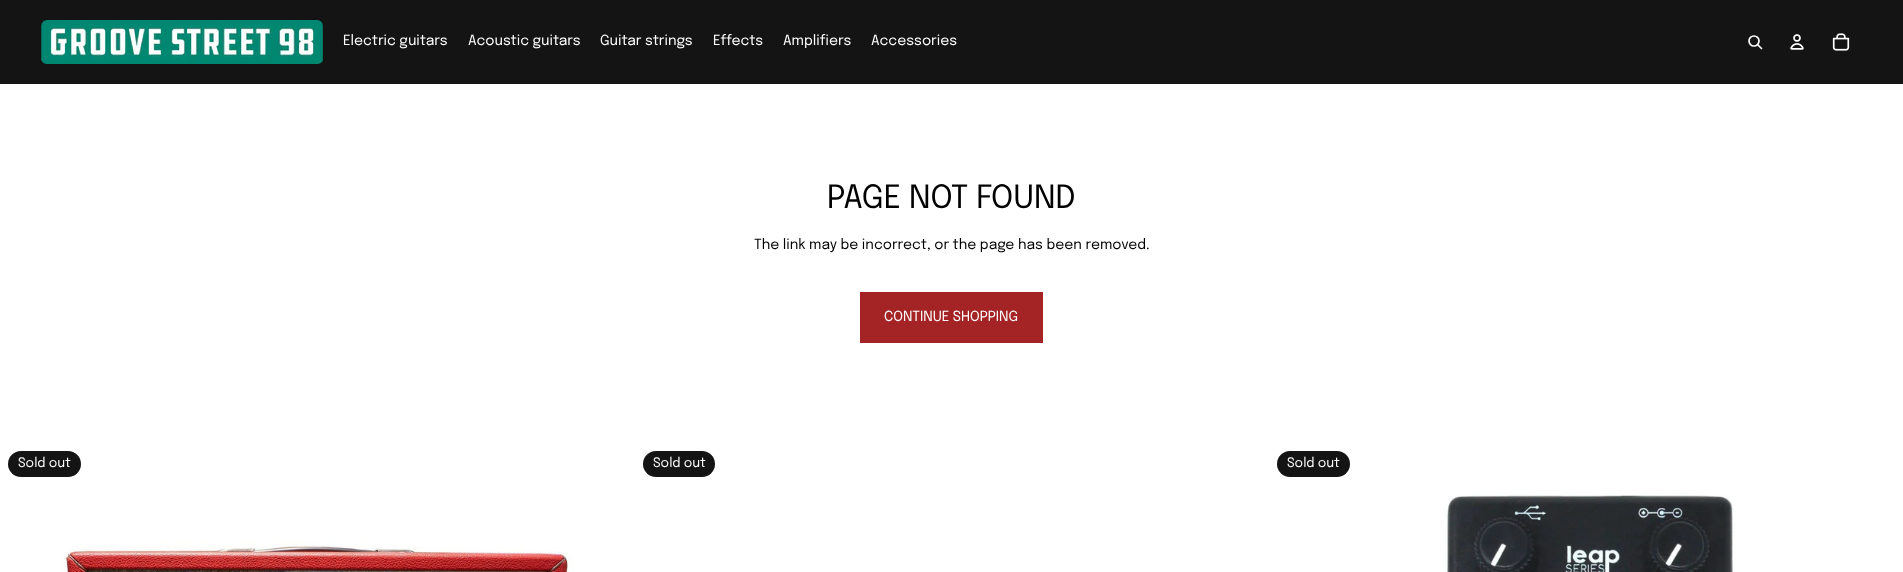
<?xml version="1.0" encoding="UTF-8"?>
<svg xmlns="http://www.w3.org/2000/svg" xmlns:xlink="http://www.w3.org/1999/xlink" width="1903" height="572">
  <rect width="100%" height="100%" fill="#ffffff" />
  <rect width="1903" height="84" fill="#141414" />
  <image x="41" y="20" width="282" height="44" xlink:href="image1.png" />
  <circle cx="1754" cy="41" r="5" fill="none" stroke="#ffffff" stroke-width="1.7" />
  <path d="M 1758 45 l 3.5 3.5" fill="none" stroke="#ffffff" stroke-width="1.7" stroke-linecap="round" stroke-linejoin="round" />
  <image x="1790" y="34" width="14" height="16" xlink:href="image2.png" />
  <image x="1832" y="33" width="18" height="18" xlink:href="image3.png" />
  <rect x="860" y="292" width="183" height="51" fill="#a42325" />
  <image x="0" y="443" width="634" height="129" xlink:href="image4.png" />
  <rect x="8" y="451" width="73" height="26" rx="13" fill="#141414" />
  <rect x="643" y="451" width="72" height="26" rx="13" fill="#141414" />
  <image x="1269" y="443" width="634" height="129" xlink:href="image5.png" />
  <rect x="1277" y="451" width="73" height="26" rx="13" fill="#141414" />
  <text x="343" y="45" style="font-family: Epilogue; font-size: 14px; fill: #ffffff">Electric guitars</text>
  <text x="468" y="45" style="font-family: Epilogue; font-size: 14px; fill: #ffffff">Acoustic guitars</text>
  <text x="600" y="45" style="font-family: Epilogue; font-size: 14px; fill: #ffffff">Guitar strings</text>
  <text x="713" y="45" style="font-family: Epilogue; font-size: 14px; fill: #ffffff">Effects</text>
  <text x="783" y="45" style="font-family: Epilogue; font-size: 14px; fill: #ffffff">Amplifiers</text>
  <text x="871" y="45" style="font-family: Epilogue; font-size: 14px; fill: #ffffff">Accessories</text>
  <text x="827" y="208" style="font-family: Epilogue; font-size: 32px; fill: #000000">PAGE NOT FOUND</text>
  <text x="754" y="249" style="font-family: Epilogue; font-size: 14px; fill: #000000">The link may be incorrect, or the page has been removed.</text>
  <text x="884" y="321" style="font-family: Epilogue; font-size: 14px; fill: #ffffff">CONTINUE SHOPPING</text>
  <text x="18" y="467" style="font-family: Epilogue; font-size: 13px; fill: #ffffff">Sold out</text>
  <text x="653" y="467" style="font-family: Epilogue; font-size: 13px; fill: #ffffff">Sold out</text>
  <text x="1287" y="467" style="font-family: Epilogue; font-size: 13px; fill: #ffffff">Sold out</text>
</svg>
